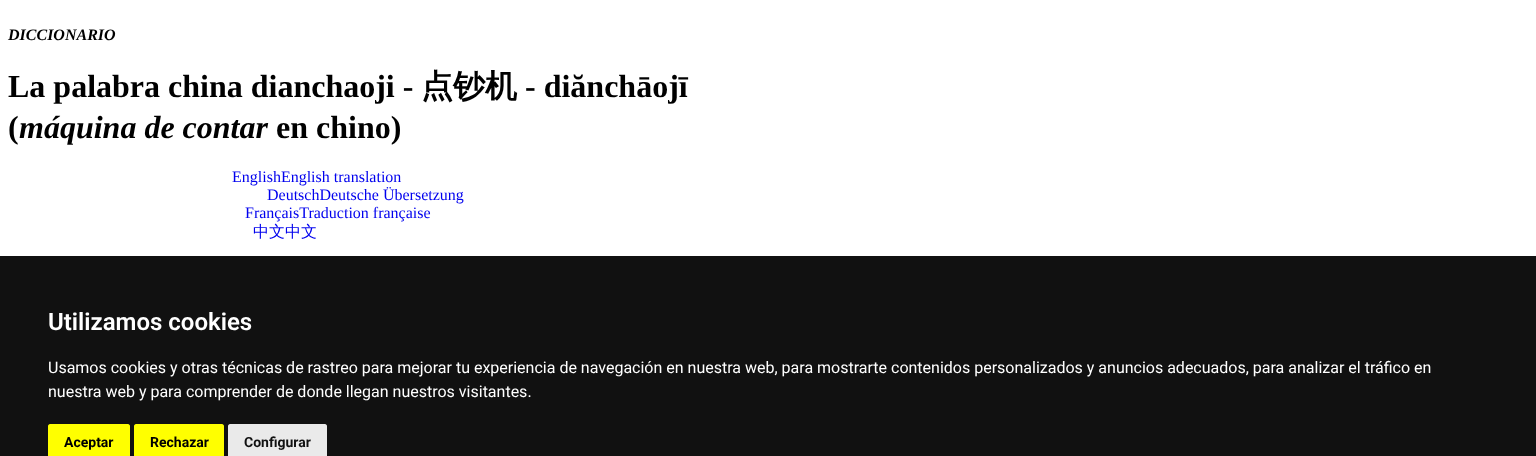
<?xml version="1.0" encoding="UTF-8"?>
<svg xmlns="http://www.w3.org/2000/svg" xmlns:xlink="http://www.w3.org/1999/xlink" width="1536" height="456">
  <rect width="100%" height="100%" fill="#ffffff" />
  <rect y="256" width="1536" height="200" fill="#111111" />
  <path d="M 50 424 h 78 c 1 0 2 1 2 2 v 30 h -82 v -30 c 0 -1 1 -2 2 -2 z" fill="#ffff00" />
  <path d="M 136 424 h 86 c 1 0 2 1 2 2 v 30 h -90 v -30 c 0 -1 1 -2 2 -2 z" fill="#ffff00" />
  <path d="M 230 424 h 95 c 1 0 2 1 2 2 v 30 h -99 v -30 c 0 -1 1 -2 2 -2 z" fill="#eaeaea" />
  <text x="8" y="40" style="font-family: Liberation Serif; font-size: 16px; font-weight: bold; font-style: italic; fill: #000000">DICCIONARIO</text>
  <text x="8" y="97" style="font-family: Liberation Serif; font-size: 32px; font-weight: bold; fill: #000000">La palabra china dianchaoji -</text>
  <text x="421" y="97" style="font-family: WenQuanYi Zen Hei; font-size: 32px; font-weight: bold; fill: #000000">点钞机</text>
  <text x="525" y="97" style="font-family: Liberation Serif; font-size: 32px; font-weight: bold; fill: #000000">- diănchāojī</text>
  <text x="8" y="138" style="font-family: Liberation Serif; font-size: 32px; font-weight: bold; fill: #000000">(</text>
  <text x="19" y="138" style="font-family: Liberation Serif; font-size: 32px; font-weight: bold; font-style: italic; fill: #000000">máquina de contar</text>
  <text x="276" y="138" style="font-family: Liberation Serif; font-size: 32px; font-weight: bold; fill: #000000">en chino)</text>
  <text x="232" y="182" style="font-family: Liberation Serif; font-size: 16px; fill: #0000ee">EnglishEnglish translation</text>
  <text x="267" y="200" style="font-family: Liberation Serif; font-size: 16px; fill: #0000ee">DeutschDeutsche Übersetzung</text>
  <text x="245" y="218" style="font-family: Liberation Serif; font-size: 16px; fill: #0000ee">FrançaisTraduction française</text>
  <text x="253" y="237" style="font-family: WenQuanYi Zen Hei; font-size: 16px; font-weight: 500; fill: #0000ee">中文中文</text>
  <text x="48" y="330" style="font-family: Roboto; font-size: 24px; font-weight: 600; fill: #ffffff">Utilizamos cookies</text>
  <text x="48" y="373" style="font-family: Roboto; font-size: 16px; fill: #ffffff">Usamos cookies y otras técnicas de rastreo para mejorar tu experiencia de navegación en nuestra web, para mostrarte contenidos personalizados y anuncios adecuados, para analizar el tráfico en</text>
  <text x="48" y="397" style="font-family: Roboto; font-size: 16px; fill: #ffffff">nuestra web y para comprender de donde llegan nuestros visitantes.</text>
  <text x="64" y="447" style="font-family: Roboto; font-size: 14px; font-weight: bold; fill: #000000">Aceptar</text>
  <text x="150" y="447" style="font-family: Roboto; font-size: 14px; font-weight: bold; fill: #000000">Rechazar</text>
  <text x="244" y="447" style="font-family: Roboto; font-size: 14px; font-weight: bold; fill: #111111">Configurar</text>
</svg>
